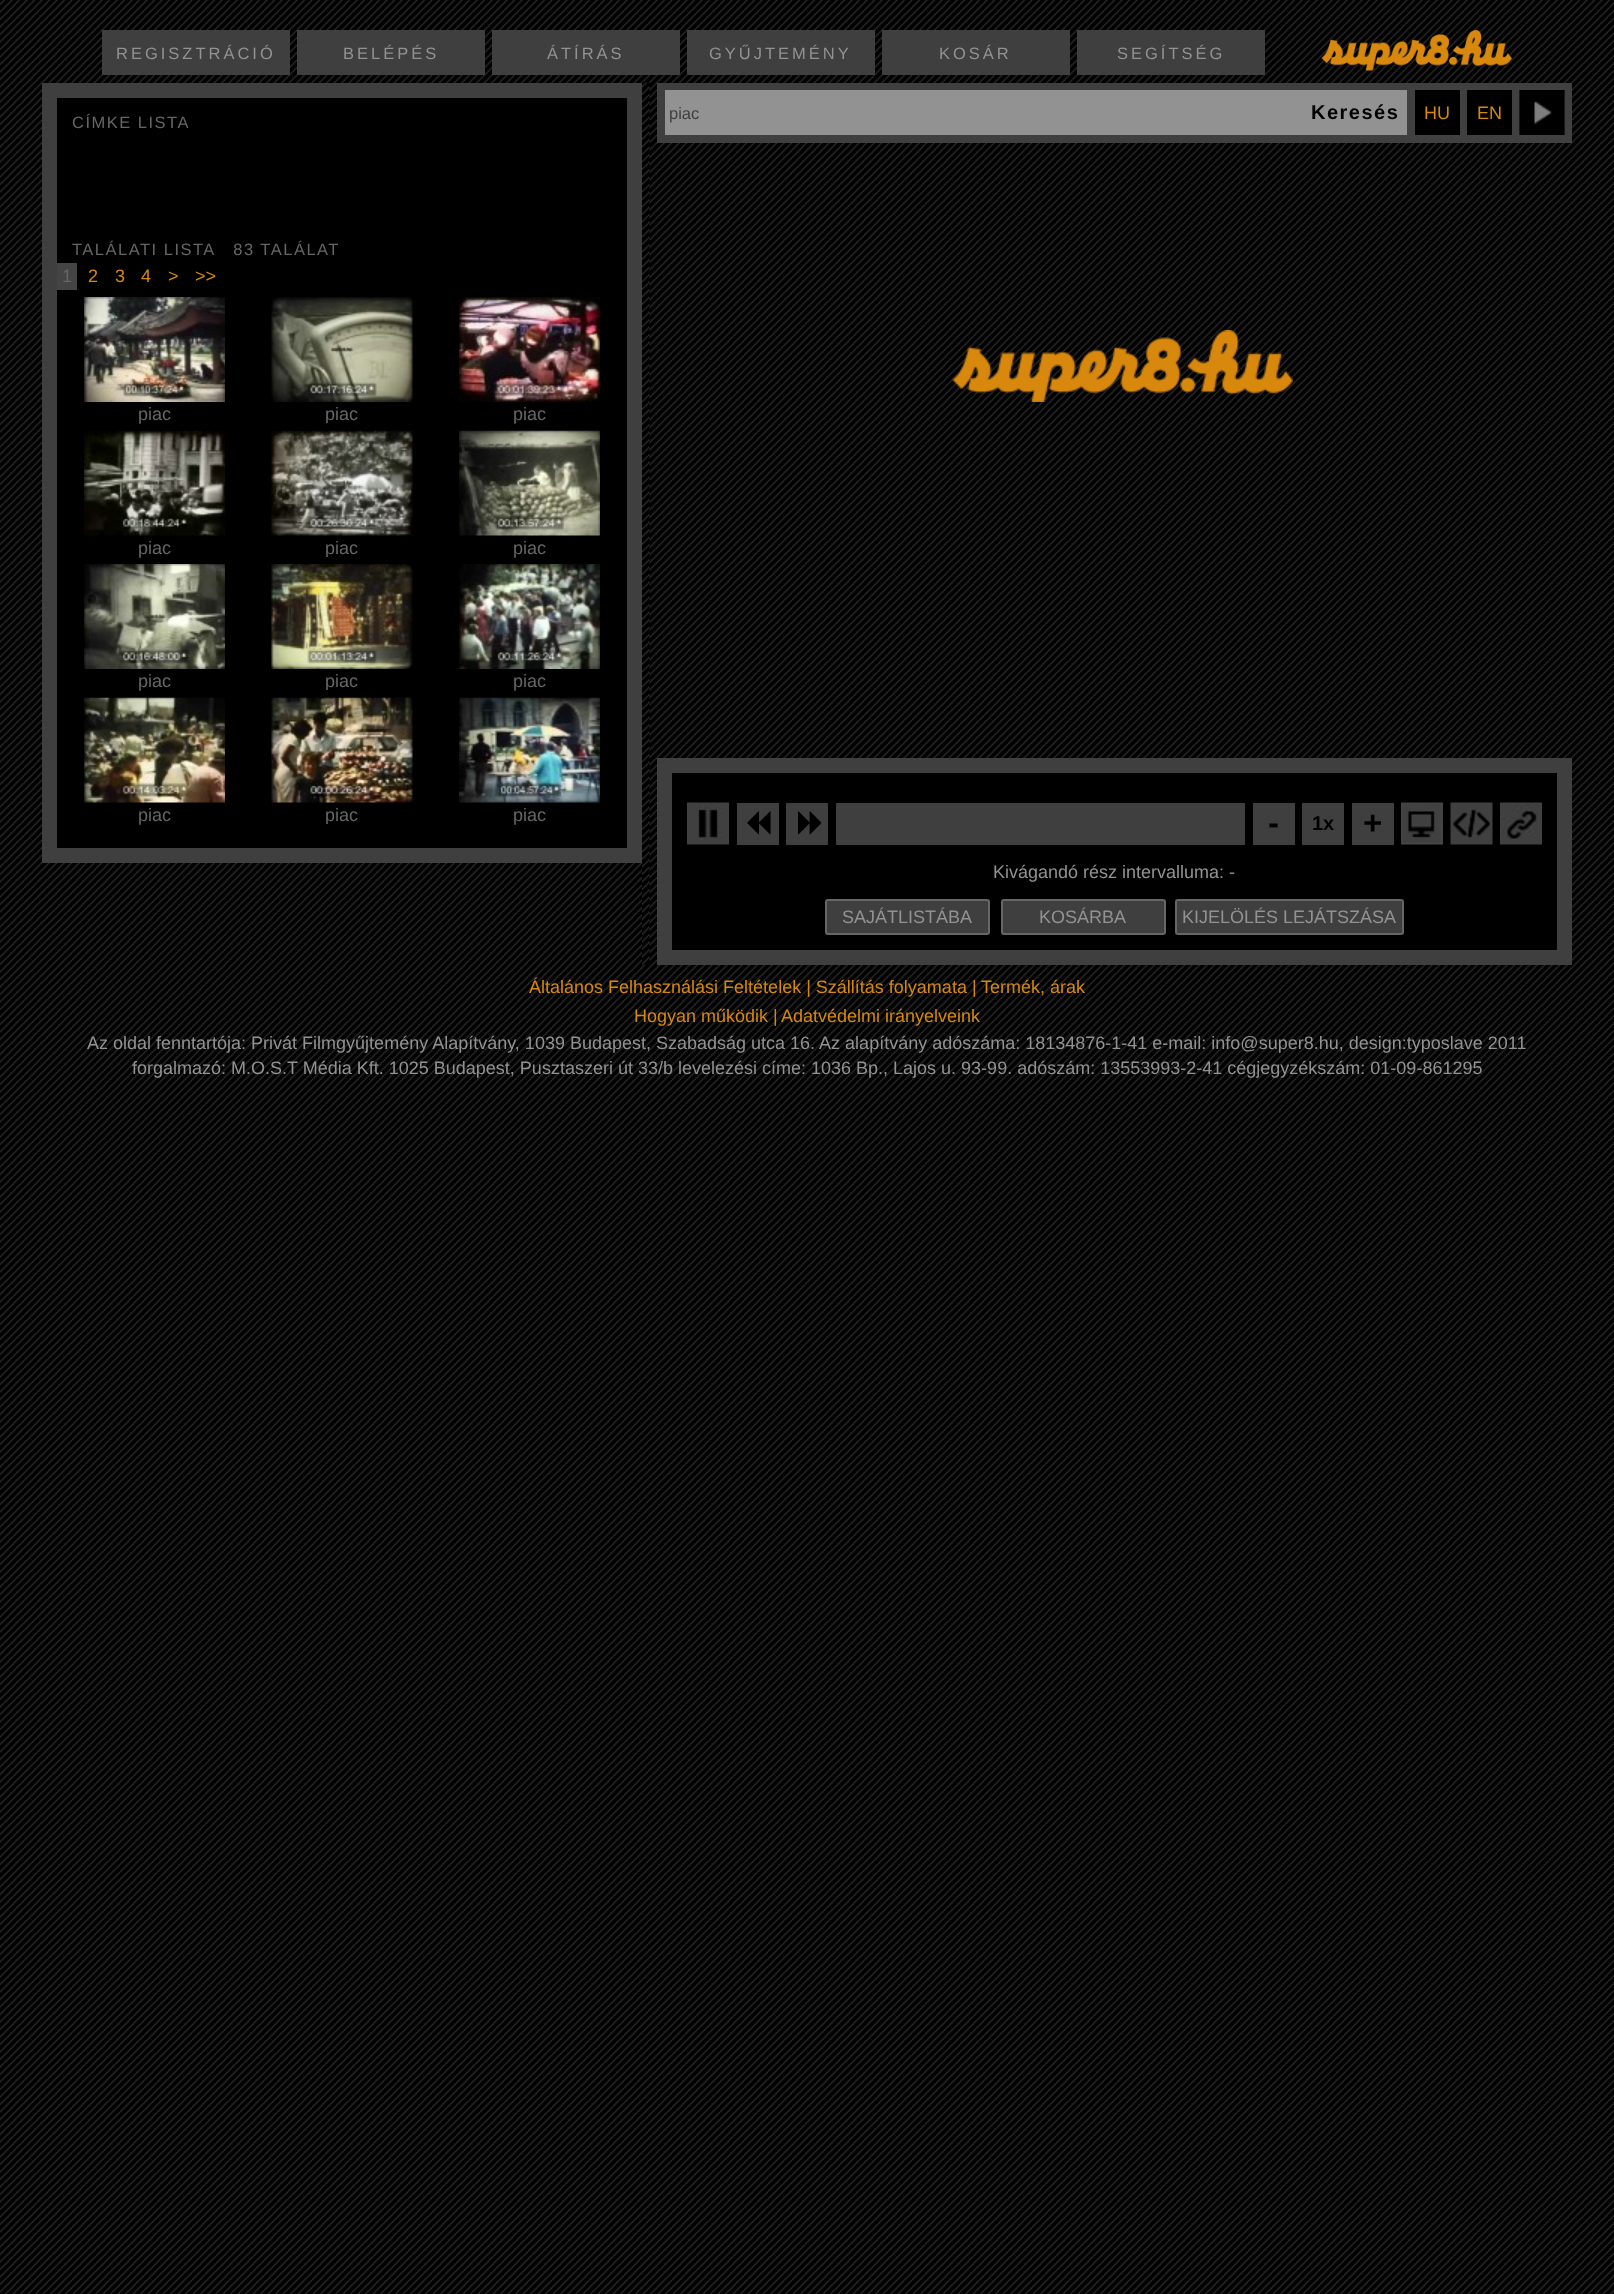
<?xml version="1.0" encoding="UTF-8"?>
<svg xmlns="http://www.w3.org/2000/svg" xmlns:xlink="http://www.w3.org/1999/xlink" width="1614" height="2294">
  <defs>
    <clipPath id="clip1"><rect x="252" y="297" width="180" height="126" /></clipPath>
    <clipPath id="clip2"><rect x="252" y="431" width="180" height="126" /></clipPath>
    <clipPath id="clip3"><rect x="252" y="564" width="180" height="126" /></clipPath>
    <clipPath id="clip4"><rect x="252" y="698" width="180" height="126" /></clipPath>
  </defs>
  <rect width="100%" height="100%" fill="#ffffff" />
  <image x="0" y="0" width="1614" height="2294" xlink:href="image1.png" />
  <rect x="102" y="30" width="188" height="45" fill="#3f3f3f" />
  <rect x="297" y="30" width="188" height="45" fill="#3f3f3f" />
  <rect x="492" y="30" width="188" height="45" fill="#3f3f3f" />
  <rect x="687" y="30" width="188" height="45" fill="#3f3f3f" />
  <rect x="882" y="30" width="188" height="45" fill="#3f3f3f" />
  <rect x="1077" y="30" width="188" height="45" fill="#3f3f3f" />
  <image x="1321" y="30" width="191" height="41" xlink:href="image2.png" />
  <rect x="49.5" y="90.5" width="585" height="765" fill="#000000" stroke="#3f3f3f" stroke-width="15" />
  <rect x="57" y="263" width="20" height="27" fill="#444444" />
  <image x="84" y="297" width="141" height="105" xlink:href="image3.png" />
  <image x="271" y="297" width="142" height="105" xlink:href="image4.png" />
  <image x="459" y="297" width="141" height="105" xlink:href="image5.png" />
  <image x="84" y="430" width="141" height="106" xlink:href="image6.png" />
  <image x="271" y="430" width="142" height="106" xlink:href="image7.png" />
  <image x="459" y="430" width="141" height="106" xlink:href="image8.png" />
  <image x="84" y="564" width="141" height="105" xlink:href="image9.png" />
  <image x="271" y="564" width="142" height="105" xlink:href="image10.png" />
  <image x="459" y="564" width="141" height="105" xlink:href="image11.png" />
  <image x="84" y="697" width="141" height="106" xlink:href="image12.png" />
  <image x="271" y="697" width="142" height="106" xlink:href="image13.png" />
  <image x="459" y="697" width="141" height="106" xlink:href="image14.png" />
  <image x="642" y="82" width="8" height="883" xlink:href="image15.png" />
  <rect x="657" y="83" width="750" height="60" fill="#3f3f3f" />
  <rect x="665" y="90" width="742" height="45" fill="#929292" />
  <rect x="1407" y="83" width="165" height="60" fill="#404040" />
  <rect x="1415" y="90" width="45" height="45" fill="#000000" />
  <rect x="1467" y="90" width="45" height="45" fill="#000000" />
  <image x="1519" y="90" width="46" height="45" xlink:href="image16.png" />
  <image x="1519" y="90" width="46" height="45" xlink:href="image17.png" />
  <image x="952" y="330" width="341" height="72" xlink:href="image18.png" />
  <rect x="664.5" y="765.5" width="900" height="192" fill="#000000" stroke="#3f3f3f" stroke-width="15" />
  <image x="687" y="802" width="42" height="43" xlink:href="image19.png" />
  <rect x="737" y="803" width="42" height="42" fill="#3f3f3f" />
  <image x="747" y="811" width="24" height="24" xlink:href="image20.png" />
  <rect x="786" y="803" width="42" height="42" fill="#3f3f3f" />
  <image x="798" y="811" width="24" height="24" xlink:href="image21.png" />
  <rect x="836" y="803" width="409" height="42" fill="#3f3f3f" />
  <rect x="1253" y="803" width="42" height="42" fill="#3f3f3f" />
  <rect x="1302" y="803" width="42" height="42" fill="#3f3f3f" />
  <rect x="1352" y="803" width="42" height="42" fill="#3f3f3f" />
  <image x="1401" y="802" width="42" height="43" xlink:href="image22.png" />
  <image x="1450" y="802" width="43" height="43" xlink:href="image23.png" />
  <image x="1500" y="802" width="42" height="43" xlink:href="image24.png" />
  <rect x="826" y="900" width="163" height="34" rx="2" fill="#3f3f3f" stroke="#666666" stroke-width="2" />
  <rect x="1002" y="900" width="163" height="34" rx="2" fill="#3f3f3f" stroke="#666666" stroke-width="2" />
  <rect x="1176" y="900" width="227" height="34" rx="2" fill="#3f3f3f" stroke="#666666" stroke-width="2" />
  <text x="116" y="59" style="font-family: Liberation Sans; font-size: 16.5px; letter-spacing: 3px; fill: #929292">REGISZTRÁCIÓ</text>
  <text x="343" y="59" style="font-family: Liberation Sans; font-size: 16.5px; letter-spacing: 3px; fill: #929292">BELÉPÉS</text>
  <text x="547" y="59" style="font-family: Liberation Sans; font-size: 16.5px; letter-spacing: 3px; fill: #929292">ÁTÍRÁS</text>
  <text x="709" y="59" style="font-family: Liberation Sans; font-size: 16.5px; letter-spacing: 3px; fill: #929292">GYŰJTEMÉNY</text>
  <text x="939" y="59" style="font-family: Liberation Sans; font-size: 16.5px; letter-spacing: 3px; fill: #929292">KOSÁR</text>
  <text x="1117" y="59" style="font-family: Liberation Sans; font-size: 16.5px; letter-spacing: 3px; fill: #929292">SEGÍTSÉG</text>
  <text x="72" y="128" style="font-family: Liberation Sans; font-size: 16.5px; letter-spacing: 1.5px; fill: #666666">CÍMKE LISTA</text>
  <text x="72" y="255" style="font-family: Liberation Sans; font-size: 16.5px; letter-spacing: 1.5px; fill: #666666" xml:space="preserve">TALÁLATI LISTA   83 TALÁLAT</text>
  <text x="62" y="282" style="font-family: Liberation Sans; font-size: 18px; fill: #666666">1</text>
  <text x="88" y="282" style="font-family: Liberation Sans; font-size: 18px; fill: #d7880d">2</text>
  <text x="115" y="282" style="font-family: Liberation Sans; font-size: 18px; fill: #d7880d">3</text>
  <text x="141" y="282" style="font-family: Liberation Sans; font-size: 18px; fill: #d7880d">4</text>
  <text x="168" y="282" style="font-family: Liberation Sans; font-size: 18px; fill: #d7880d">&gt;</text>
  <text x="195" y="282" style="font-family: Liberation Sans; font-size: 18px; fill: #d7880d">&gt;&gt;</text>
  <text x="138" y="420" style="font-family: Liberation Sans; font-size: 18px; fill: #666666">piac</text>
  <g clip-path="url(#clip1)">
    <text x="325" y="420" style="font-family: Liberation Sans; font-size: 18px; fill: #666666">piac</text>
  </g>
  <text x="513" y="420" style="font-family: Liberation Sans; font-size: 18px; fill: #666666">piac</text>
  <text x="138" y="554" style="font-family: Liberation Sans; font-size: 18px; fill: #666666">piac</text>
  <g clip-path="url(#clip2)">
    <text x="325" y="554" style="font-family: Liberation Sans; font-size: 18px; fill: #666666">piac</text>
  </g>
  <text x="513" y="554" style="font-family: Liberation Sans; font-size: 18px; fill: #666666">piac</text>
  <text x="138" y="687" style="font-family: Liberation Sans; font-size: 18px; fill: #666666">piac</text>
  <g clip-path="url(#clip3)">
    <text x="325" y="687" style="font-family: Liberation Sans; font-size: 18px; fill: #666666">piac</text>
  </g>
  <text x="513" y="687" style="font-family: Liberation Sans; font-size: 18px; fill: #666666">piac</text>
  <text x="138" y="821" style="font-family: Liberation Sans; font-size: 18px; fill: #666666">piac</text>
  <g clip-path="url(#clip4)">
    <text x="325" y="821" style="font-family: Liberation Sans; font-size: 18px; fill: #666666">piac</text>
  </g>
  <text x="513" y="821" style="font-family: Liberation Sans; font-size: 18px; fill: #666666">piac</text>
  <text x="669" y="119" style="font-family: Liberation Sans; font-size: 16.5px; fill: #3f3f3f">piac</text>
  <text x="1311" y="119" style="font-family: Liberation Sans; font-size: 20px; font-weight: bold; letter-spacing: 1.5px; fill: #000000">Keresés</text>
  <text x="1424" y="119" style="font-family: Liberation Sans; font-size: 18px; fill: #d7880d">HU</text>
  <text x="1477" y="119" style="font-family: Liberation Sans; font-size: 18px; fill: #d7880d">EN</text>
  <text x="1268" y="834" style="font-family: Liberation Sans; font-size: 33px; font-weight: bold; fill: #000000">-</text>
  <text x="1312" y="830" style="font-family: Liberation Sans; font-size: 20px; font-weight: bold; fill: #000000">1x</text>
  <text x="1363" y="834" style="font-family: Liberation Sans; font-size: 33px; font-weight: bold; fill: #000000">+</text>
  <text x="993" y="878" style="font-family: Liberation Sans; font-size: 18px; fill: #929292">Kivágandó rész intervalluma: -</text>
  <text x="842" y="923" style="font-family: Liberation Sans; font-size: 18px; fill: #929292">SAJÁTLISTÁBA</text>
  <text x="1039" y="923" style="font-family: Liberation Sans; font-size: 18px; fill: #929292">KOSÁRBA</text>
  <text x="1182" y="923" style="font-family: Liberation Sans; font-size: 18px; fill: #929292">KIJELÖLÉS LEJÁTSZÁSA</text>
  <text x="529" y="993" style="font-family: Liberation Sans; font-size: 18px; fill: #d7880d">Általános Felhasználási Feltételek | Szállítás folyamata |</text>
  <text x="981" y="993" style="font-family: Liberation Sans; font-size: 18px; fill: #d7880d">Termék, árak</text>
  <text x="634" y="1022" style="font-family: Liberation Sans; font-size: 18px; fill: #d7880d">Hogyan működik |</text>
  <text x="781" y="1022" style="font-family: Liberation Sans; font-size: 18px; fill: #d7880d">Adatvédelmi irányelveink</text>
  <text x="87" y="1049" style="font-family: Liberation Sans; font-size: 18px; fill: #929292">Az oldal fenntartója: Privát Filmgyűjtemény Alapítvány, 1039 Budapest, Szabadság utca 16. Az alapítvány adószáma: 18134876-1-41 e-mail: info@super8.hu, design:typoslave 2011</text>
  <text x="132" y="1074" style="font-family: Liberation Sans; font-size: 18px; fill: #929292">forgalmazó: M.O.S.T Média Kft. 1025 Budapest, Pusztaszeri út 33/b levelezési címe: 1036 Bp., Lajos u. 93-99. adószám: 13553993-2-41 cégjegyzékszám: 01-09-861295</text>
</svg>
